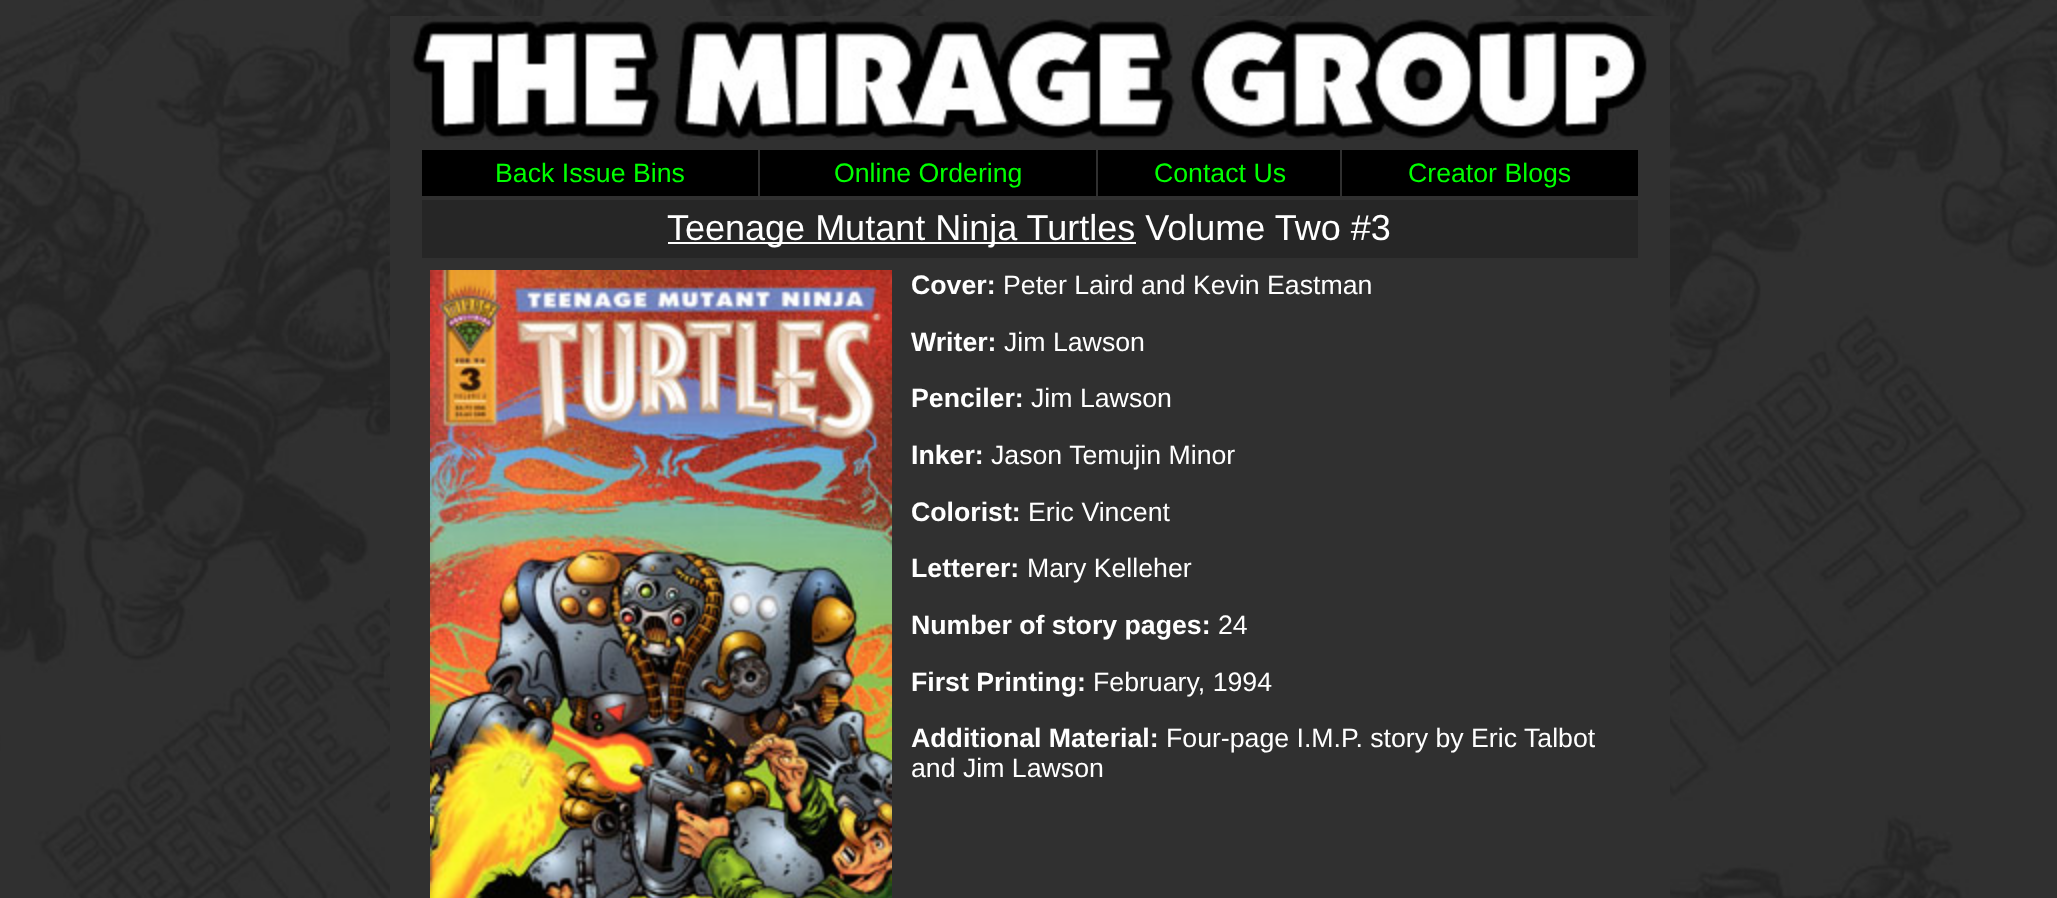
<?xml version="1.0" encoding="UTF-8"?>
<svg xmlns="http://www.w3.org/2000/svg" xmlns:xlink="http://www.w3.org/1999/xlink" width="2057" height="898">
  <rect width="100%" height="100%" fill="#ffffff" />
  <image x="0" y="0" width="2057" height="898" xlink:href="image1.png" />
  <rect x="390" y="16" width="1280" height="882" fill="#303030" />
  <image x="411" y="16" width="1236" height="124" xlink:href="image2.png" />
  <rect x="422" y="150" width="336" height="46" fill="#000000" />
  <rect x="760" y="150" width="336" height="46" fill="#000000" />
  <rect x="1098" y="150" width="242" height="46" fill="#000000" />
  <rect x="1342" y="150" width="296" height="46" fill="#000000" />
  <rect x="422" y="200" width="1216" height="58" fill="#262626" />
  <rect x="668" y="242" width="468" height="2" fill="#ffffff" />
  <image x="430" y="270" width="462" height="628" xlink:href="image3.png" />
  <text x="495" y="182" style="font-family: Liberation Sans; font-size: 26.7px; fill: #00ff00">Back Issue Bins</text>
  <text x="834" y="182" style="font-family: Liberation Sans; font-size: 26.7px; fill: #00ff00">Online Ordering</text>
  <text x="1154" y="182" style="font-family: Liberation Sans; font-size: 26.7px; fill: #00ff00">Contact Us</text>
  <text x="1408" y="182" style="font-family: Liberation Sans; font-size: 26.7px; fill: #00ff00">Creator Blogs</text>
  <text x="667" y="240" style="font-family: Liberation Sans; font-size: 36px; fill: #ffffff">Teenage Mutant Ninja Turtles Volume Two #3</text>
  <text x="911" y="294" style="font-family: Liberation Sans; font-size: 26.7px; font-weight: bold; fill: #ffffff">Cover:</text>
  <text x="1003" y="294" style="font-family: Liberation Sans; font-size: 26.7px; fill: #ffffff">Peter Laird and Kevin Eastman</text>
  <text x="911" y="351" style="font-family: Liberation Sans; font-size: 26.7px; font-weight: bold; fill: #ffffff">Writer:</text>
  <text x="1004" y="351" style="font-family: Liberation Sans; font-size: 26.7px; fill: #ffffff">Jim Lawson</text>
  <text x="911" y="407" style="font-family: Liberation Sans; font-size: 26.7px; font-weight: bold; fill: #ffffff">Penciler:</text>
  <text x="1031" y="407" style="font-family: Liberation Sans; font-size: 26.7px; fill: #ffffff">Jim Lawson</text>
  <text x="911" y="464" style="font-family: Liberation Sans; font-size: 26.7px; font-weight: bold; fill: #ffffff">Inker:</text>
  <text x="991" y="464" style="font-family: Liberation Sans; font-size: 26.7px; fill: #ffffff">Jason Temujin Minor</text>
  <text x="911" y="521" style="font-family: Liberation Sans; font-size: 26.7px; font-weight: bold; fill: #ffffff">Colorist:</text>
  <text x="1028" y="521" style="font-family: Liberation Sans; font-size: 26.7px; fill: #ffffff">Eric Vincent</text>
  <text x="911" y="577" style="font-family: Liberation Sans; font-size: 26.7px; font-weight: bold; fill: #ffffff">Letterer:</text>
  <text x="1027" y="577" style="font-family: Liberation Sans; font-size: 26.7px; fill: #ffffff">Mary Kelleher</text>
  <text x="911" y="634" style="font-family: Liberation Sans; font-size: 26.7px; font-weight: bold; fill: #ffffff">Number of story pages:</text>
  <text x="1218" y="634" style="font-family: Liberation Sans; font-size: 26.7px; fill: #ffffff">24</text>
  <text x="911" y="691" style="font-family: Liberation Sans; font-size: 26.7px; font-weight: bold; fill: #ffffff">First Printing:</text>
  <text x="1093" y="691" style="font-family: Liberation Sans; font-size: 26.7px; fill: #ffffff">February, 1994</text>
  <text x="911" y="747" style="font-family: Liberation Sans; font-size: 26.7px; font-weight: bold; fill: #ffffff">Additional Material:</text>
  <text x="1166" y="747" style="font-family: Liberation Sans; font-size: 26.7px; fill: #ffffff">Four-page I.M.P. story by Eric Talbot</text>
  <text x="911" y="777" style="font-family: Liberation Sans; font-size: 26.7px; fill: #ffffff">and Jim Lawson</text>
</svg>
